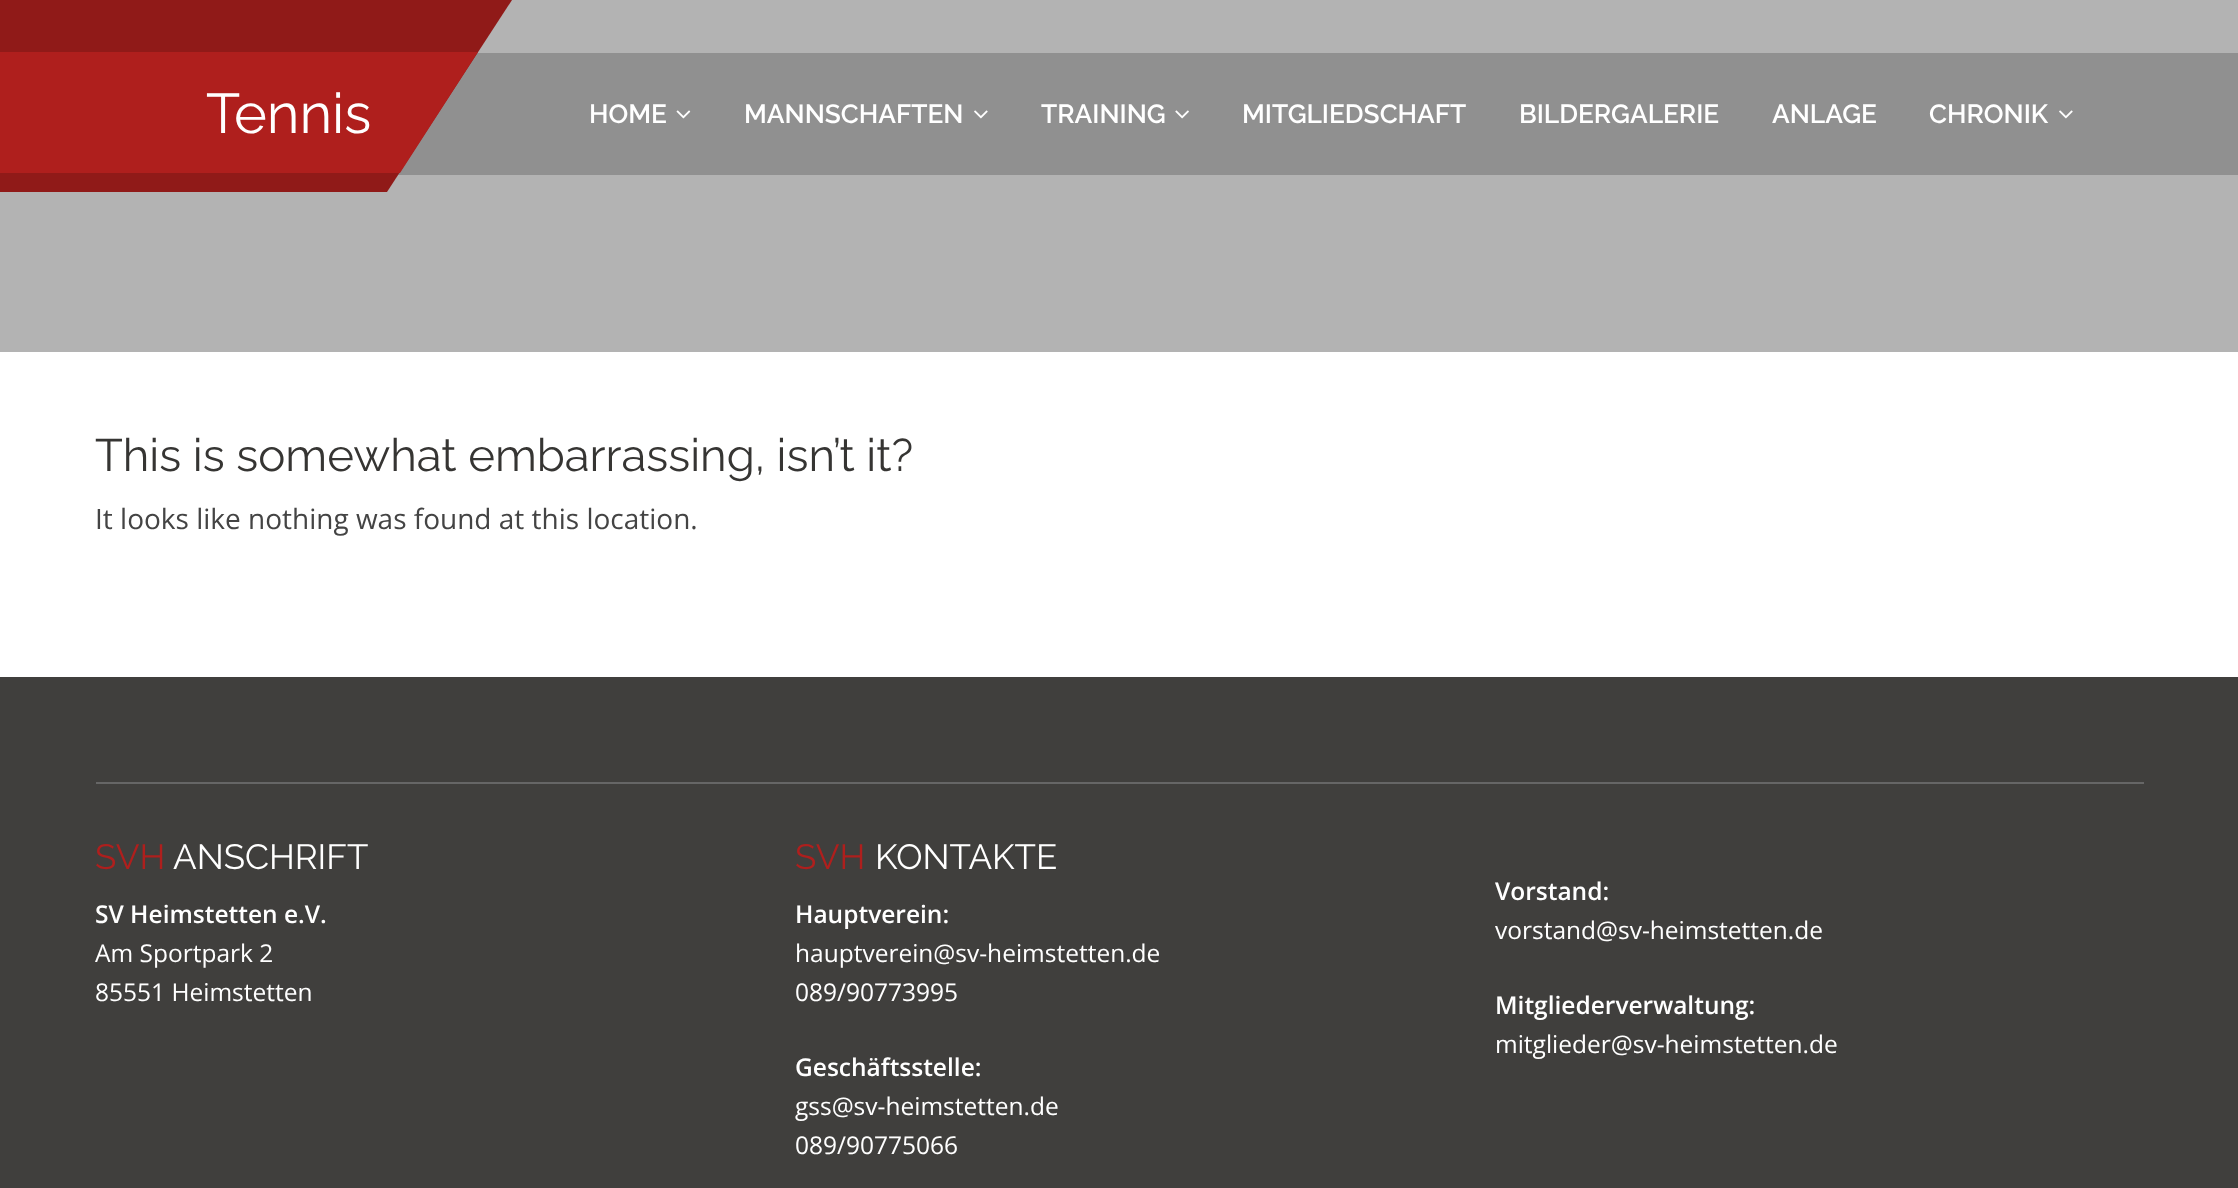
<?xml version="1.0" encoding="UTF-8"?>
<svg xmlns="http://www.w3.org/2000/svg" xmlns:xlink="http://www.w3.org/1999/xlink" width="2238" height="1188">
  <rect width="100%" height="100%" fill="#ffffff" />
  <rect width="2238" height="352" fill="#b3b3b3" />
  <rect x="398" y="53" width="1840" height="122" fill="#909090" />
  <path d="M -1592 0 h 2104 l -125 192 h -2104 z" fill="#901a18" />
  <path d="M -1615 52 h 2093 l -78 121 h -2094 z" fill="#af1f1d" />
  <image x="676" y="110" width="15" height="9" xlink:href="image1.png" />
  <image x="974" y="110" width="14" height="9" xlink:href="image2.png" />
  <image x="1175" y="110" width="14" height="9" xlink:href="image3.png" />
  <image x="2059" y="110" width="14" height="9" xlink:href="image2.png" />
  <rect y="677" width="2238" height="511" fill="#403f3d" />
  <rect x="96" y="782" width="2048" height="2" fill="#666666" />
  <text x="206" y="133" style="font-family: Raleway; font-size: 56px; font-weight: 100; fill: #ffffff">Tennis</text>
  <text x="589" y="123" style="font-family: 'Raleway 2'; font-size: 26.25px; font-weight: 100; fill: #ffffff">HOME</text>
  <text x="744" y="123" style="font-family: 'Raleway 2'; font-size: 26.25px; font-weight: 100; fill: #ffffff">MANNSCHAFTEN</text>
  <text x="1041" y="123" style="font-family: 'Raleway 2'; font-size: 26.25px; font-weight: 100; fill: #ffffff">TRAINING</text>
  <text x="1242" y="123" style="font-family: 'Raleway 2'; font-size: 26.25px; font-weight: 100; fill: #ffffff">MITGLIEDSCHAFT</text>
  <text x="1519" y="123" style="font-family: 'Raleway 2'; font-size: 26.25px; font-weight: 100; fill: #ffffff">BILDERGALERIE</text>
  <text x="1772" y="123" style="font-family: 'Raleway 2'; font-size: 26.25px; font-weight: 100; fill: #ffffff">ANLAGE</text>
  <text x="1929" y="123" style="font-family: 'Raleway 2'; font-size: 26.25px; font-weight: 100; fill: #ffffff">CHRONIK</text>
  <text x="95" y="471" style="font-family: Raleway; font-size: 45.5px; font-weight: 100; fill: #363533">This is somewhat embarrassing, isn’t it?</text>
  <text x="95" y="529" style="font-family: Open Sans; font-size: 28px; fill: #444444">It looks like nothing was found at this location.</text>
  <text x="95" y="869" style="font-family: Raleway; font-size: 35px; font-weight: 100; fill: #af1f1d">SVH</text>
  <text x="173" y="869" style="font-family: Raleway; font-size: 35px; font-weight: 100; fill: #ffffff">ANSCHRIFT</text>
  <text x="95" y="923" style="font-family: Open Sans; font-size: 24.5px; font-weight: 600; fill: #ffffff">SV Heimstetten e.V.</text>
  <text x="95" y="962" style="font-family: Open Sans; font-size: 24.5px; fill: #ffffff">Am Sportpark 2</text>
  <text x="95" y="1001" style="font-family: Open Sans; font-size: 24.5px; fill: #ffffff">85551 Heimstetten</text>
  <text x="795" y="869" style="font-family: Raleway; font-size: 35px; font-weight: 100; fill: #af1f1d">SVH</text>
  <text x="875" y="869" style="font-family: Raleway; font-size: 35px; font-weight: 100; fill: #ffffff">KONTAKTE</text>
  <text x="795" y="923" style="font-family: Open Sans; font-size: 24.5px; font-weight: 600; fill: #ffffff">Hauptverein:</text>
  <text x="795" y="962" style="font-family: Open Sans; font-size: 24.5px; fill: #ffffff">hauptverein@sv-heimstetten.de</text>
  <text x="795" y="1001" style="font-family: Open Sans; font-size: 24.5px; fill: #ffffff">089/90773995</text>
  <text x="795" y="1076" style="font-family: Open Sans; font-size: 24.5px; font-weight: 600; fill: #ffffff">Geschäftsstelle:</text>
  <text x="795" y="1115" style="font-family: Open Sans; font-size: 24.5px; fill: #ffffff">gss@sv-heimstetten.de</text>
  <text x="795" y="1154" style="font-family: Open Sans; font-size: 24.5px; fill: #ffffff">089/90775066</text>
  <text x="1495" y="900" style="font-family: Open Sans; font-size: 24.5px; font-weight: 600; fill: #ffffff">Vorstand:</text>
  <text x="1495" y="939" style="font-family: Open Sans; font-size: 24.5px; fill: #ffffff">vorstand@sv-heimstetten.de</text>
  <text x="1495" y="1014" style="font-family: Open Sans; font-size: 24.5px; font-weight: 600; fill: #ffffff">Mitgliederverwaltung:</text>
  <text x="1495" y="1053" style="font-family: Open Sans; font-size: 24.5px; fill: #ffffff">mitglieder@sv-heimstetten.de</text>
</svg>
